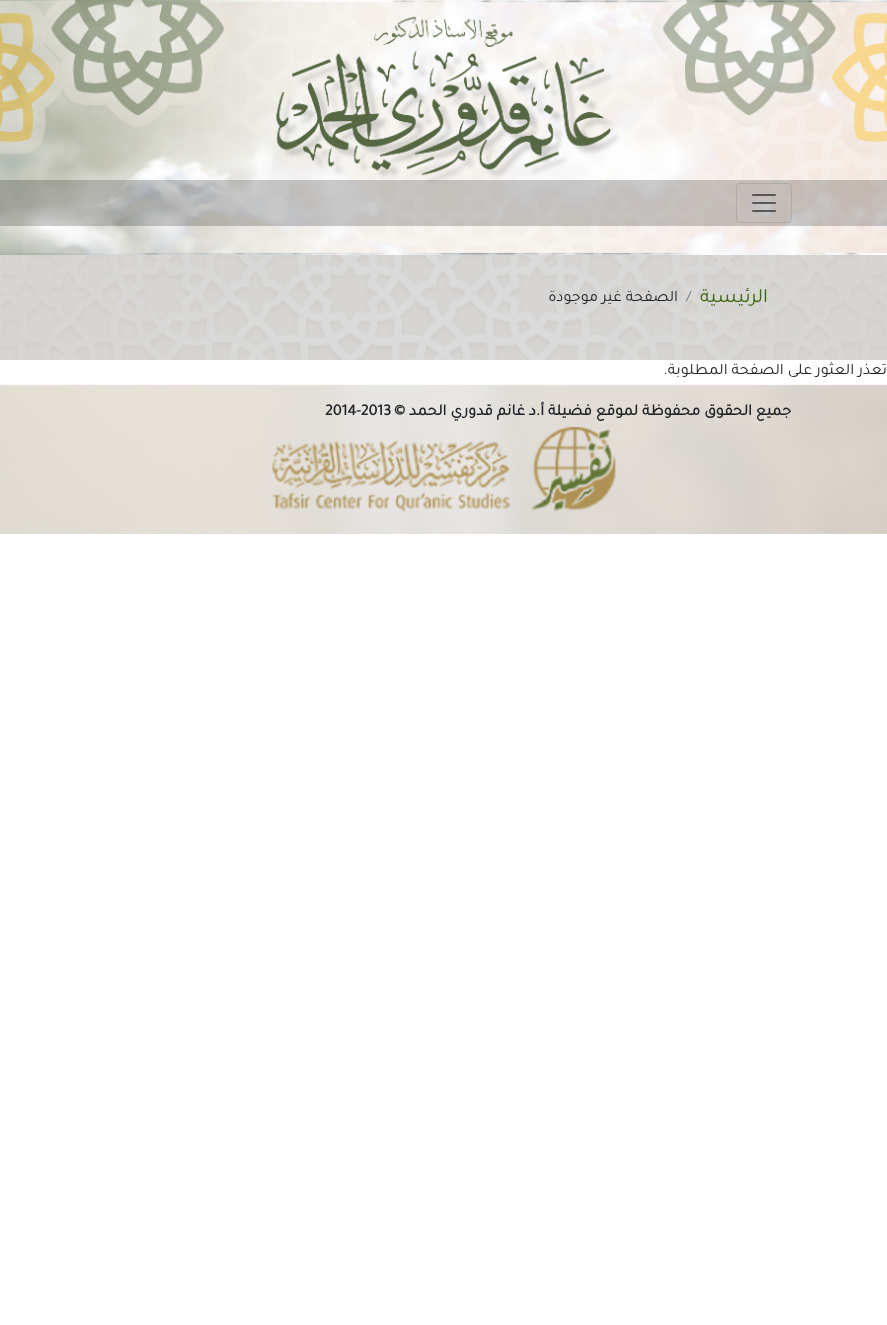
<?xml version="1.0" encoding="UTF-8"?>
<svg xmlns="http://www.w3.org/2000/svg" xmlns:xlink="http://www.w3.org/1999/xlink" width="887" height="1325">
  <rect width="100%" height="100%" fill="#ffffff" />
  <image x="0" y="0" width="887" height="255" xlink:href="image1.png" />
  <rect y="180" width="887" height="46" fill="#000000" fill-opacity="0.2" />
  <rect x="736.5" y="183.5" width="55" height="39" rx="3.5" fill="none" stroke="#000000" stroke-opacity="0.1" />
  <image x="752" y="194" width="24" height="18" xlink:href="image2.png" />
  <rect y="255" width="887" height="105" fill="#d3d3d3" />
  <image x="0" y="255" width="887" height="105" xlink:href="image3.png" />
  <rect y="384" width="887" height="150" fill="#f8f9fa" />
  <image x="0" y="385" width="887" height="149" xlink:href="image4.png" />
  <image x="272" y="426" width="344" height="86" xlink:href="image5.png" />
  <text x="768" y="302" style="font-family: Tajawal; font-size: 20px; direction: rtl; fill: #3c690f">الرئيسية</text>
  <text x="686" y="301" style="font-family: Tajawal; font-size: 16px; fill: #6c757d">/</text>
  <text x="678" y="301" style="font-family: Tajawal; font-size: 16px; direction: rtl; fill: #212529">الصفحة غير موجودة</text>
  <text x="887" y="374" style="font-family: Tajawal; font-size: 16px; direction: rtl; fill: #212529">تعذر العثور على الصفحة المطلوبة.</text>
  <text x="791" y="415" style="font-family: Tajawal; font-size: 16px; font-weight: bold; direction: rtl; fill: #212529">جميع الحقوق محفوظة لموقع فضيلة أ.د غانم قدوري الحمد ©</text>
  <text x="325" y="415" style="font-family: Tajawal; font-size: 16px; font-weight: bold; fill: #212529">2014-2013</text>
</svg>
